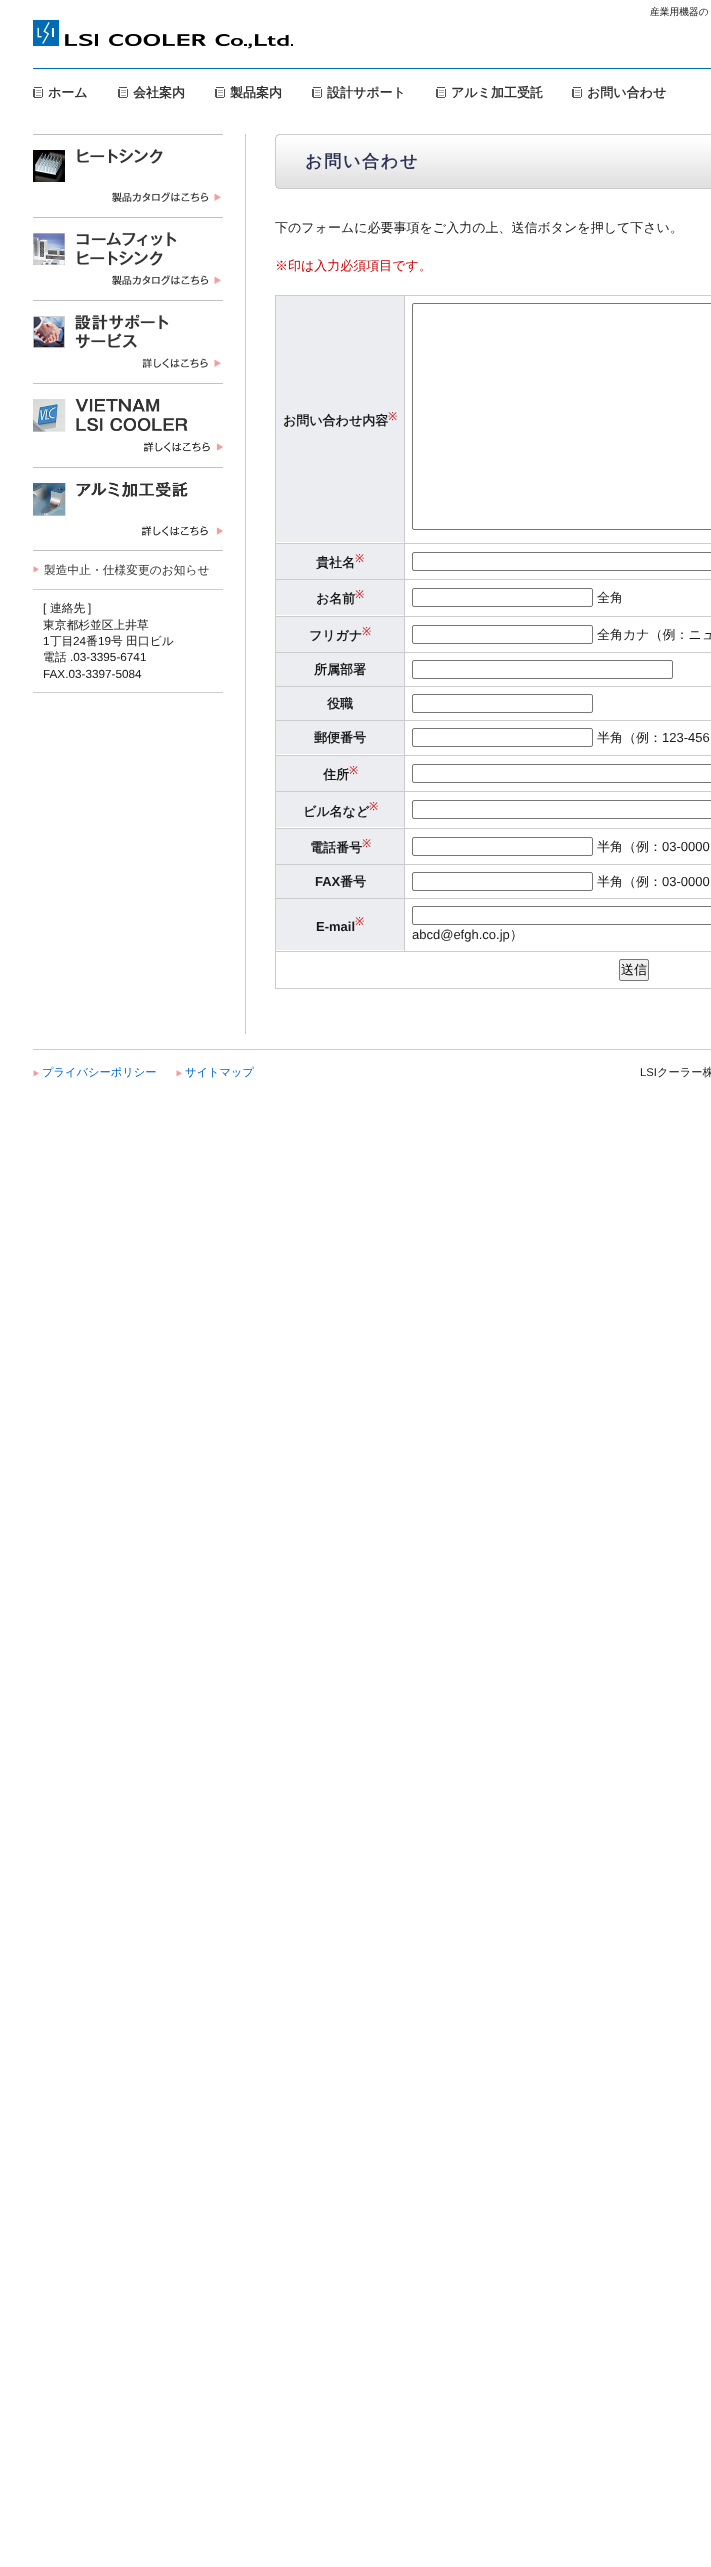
<?xml version="1.0" encoding="UTF-8"?>
<svg xmlns="http://www.w3.org/2000/svg" xmlns:xlink="http://www.w3.org/1999/xlink" width="711" height="2567">
  <rect width="100%" height="100%" fill="#ffffff" />
  <image x="33" y="20" width="260" height="29" xlink:href="image1.png" />
  <rect x="33" y="68" width="678" height="1" fill="#006cb6" />
  <image x="33" y="87" width="10" height="11" xlink:href="image2.png" />
  <image x="118" y="87" width="10" height="11" xlink:href="image2.png" />
  <image x="215" y="87" width="10" height="11" xlink:href="image2.png" />
  <image x="312" y="87" width="10" height="11" xlink:href="image2.png" />
  <image x="436" y="87" width="10" height="11" xlink:href="image2.png" />
  <image x="572" y="87" width="10" height="11" xlink:href="image2.png" />
  <rect x="245" y="134" width="1" height="900" fill="#cccccc" />
  <image x="33" y="134" width="190" height="69" xlink:href="image3.png" />
  <image x="33" y="217" width="190" height="69" xlink:href="image4.png" />
  <image x="33" y="300" width="190" height="69" xlink:href="image5.png" />
  <image x="33" y="383" width="190" height="69" xlink:href="image6.png" />
  <image x="33" y="467" width="190" height="84" xlink:href="image7.png" />
  <image x="33" y="566" width="6" height="7" xlink:href="image8.png" />
  <rect x="33" y="589" width="190" height="1" fill="#cccccc" />
  <rect x="33" y="692" width="190" height="1" fill="#cccccc" />
  <image x="275" y="134" width="436" height="55" xlink:href="image9.png" />
  <rect x="275" y="295" width="436" height="1" fill="#cccccc" />
  <rect x="275" y="295" width="1" height="694" fill="#cccccc" />
  <rect x="276" y="296" width="128" height="246" fill="#ebedf1" />
  <rect x="404" y="951" width="307" height="1" fill="#cccccc" />
  <rect x="404" y="898" width="1" height="54" fill="#cccccc" />
  <rect x="404" y="898" width="307" height="1" fill="#cccccc" />
  <rect x="404" y="864" width="1" height="35" fill="#cccccc" />
  <rect x="404" y="864" width="307" height="1" fill="#cccccc" />
  <rect x="404" y="828" width="1" height="37" fill="#cccccc" />
  <rect x="404" y="828" width="307" height="1" fill="#cccccc" />
  <rect x="404" y="791" width="1" height="38" fill="#cccccc" />
  <rect x="404" y="791" width="307" height="1" fill="#cccccc" />
  <rect x="404" y="755" width="1" height="37" fill="#cccccc" />
  <rect x="404" y="755" width="307" height="1" fill="#cccccc" />
  <rect x="404" y="720" width="1" height="36" fill="#cccccc" />
  <rect x="404" y="720" width="307" height="1" fill="#cccccc" />
  <rect x="404" y="686" width="1" height="35" fill="#cccccc" />
  <rect x="404" y="686" width="307" height="1" fill="#cccccc" />
  <rect x="404" y="652" width="1" height="35" fill="#cccccc" />
  <rect x="404" y="652" width="307" height="1" fill="#cccccc" />
  <rect x="404" y="616" width="1" height="37" fill="#cccccc" />
  <rect x="404" y="616" width="307" height="1" fill="#cccccc" />
  <rect x="404" y="579" width="1" height="38" fill="#cccccc" />
  <rect x="404" y="579" width="307" height="1" fill="#cccccc" />
  <rect x="404" y="543" width="1" height="37" fill="#cccccc" />
  <rect x="404" y="543" width="307" height="1" fill="#cccccc" />
  <rect x="404" y="295" width="1" height="249" fill="#cccccc" />
  <rect x="275" y="543" width="130" height="1" fill="#cccccc" />
  <rect x="412.5" y="303.5" width="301" height="226" rx="1.5" fill="none" stroke="#767676" />
  <rect x="276" y="544" width="128" height="35" fill="#ebedf1" />
  <rect x="275" y="579" width="130" height="1" fill="#cccccc" />
  <rect x="412.5" y="552.5" width="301" height="18" rx="1.5" fill="none" stroke="#767676" />
  <rect x="276" y="580" width="128" height="35" fill="#ebedf1" />
  <rect x="275" y="616" width="130" height="1" fill="#cccccc" />
  <rect x="412.5" y="588.5" width="180" height="18" rx="1.5" fill="none" stroke="#767676" />
  <rect x="276" y="617" width="128" height="35" fill="#ebedf1" />
  <rect x="275" y="652" width="130" height="1" fill="#cccccc" />
  <rect x="412.5" y="625.5" width="180" height="18" rx="1.5" fill="none" stroke="#767676" />
  <rect x="276" y="653" width="128" height="33" fill="#ebedf1" />
  <rect x="275" y="686" width="130" height="1" fill="#cccccc" />
  <rect x="412.5" y="660.5" width="260" height="18" rx="1.5" fill="none" stroke="#767676" />
  <rect x="276" y="687" width="128" height="33" fill="#ebedf1" />
  <rect x="275" y="720" width="130" height="1" fill="#cccccc" />
  <rect x="412.5" y="694.5" width="180" height="18" rx="1.5" fill="none" stroke="#767676" />
  <rect x="276" y="721" width="128" height="33" fill="#ebedf1" />
  <rect x="275" y="755" width="130" height="1" fill="#cccccc" />
  <rect x="412.5" y="728.5" width="180" height="18" rx="1.5" fill="none" stroke="#767676" />
  <rect x="276" y="756" width="128" height="35" fill="#ebedf1" />
  <rect x="275" y="791" width="130" height="1" fill="#cccccc" />
  <rect x="412.5" y="764.5" width="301" height="18" rx="1.5" fill="none" stroke="#767676" />
  <rect x="276" y="792" width="128" height="35" fill="#ebedf1" />
  <rect x="275" y="828" width="130" height="1" fill="#cccccc" />
  <rect x="412.5" y="800.5" width="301" height="18" rx="1.5" fill="none" stroke="#767676" />
  <rect x="276" y="829" width="128" height="35" fill="#ebedf1" />
  <rect x="275" y="864" width="130" height="1" fill="#cccccc" />
  <rect x="412.5" y="837.5" width="180" height="18" rx="1.5" fill="none" stroke="#767676" />
  <rect x="276" y="865" width="128" height="33" fill="#ebedf1" />
  <rect x="275" y="898" width="130" height="1" fill="#cccccc" />
  <rect x="412.5" y="872.5" width="180" height="18" rx="1.5" fill="none" stroke="#767676" />
  <rect x="276" y="899" width="128" height="51" fill="#ebedf1" />
  <rect x="275" y="951" width="130" height="1" fill="#cccccc" />
  <rect x="412.5" y="906.5" width="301" height="18" rx="1.5" fill="none" stroke="#767676" />
  <rect x="275" y="988" width="436" height="1" fill="#cccccc" />
  <rect x="619.5" y="959.5" width="29" height="21" rx="1.5" fill="#efefef" stroke="#767676" />
  <rect x="33" y="1049" width="678" height="1" fill="#cccccc" />
  <image x="33" y="1070" width="6" height="7" xlink:href="image8.png" />
  <image x="176" y="1070" width="6" height="7" xlink:href="image8.png" />
  <text x="650" y="15" style="font-family: WenQuanYi Zen Hei; font-size: 9.75px; font-weight: 500; fill: #191919">産業用機器の</text>
  <text x="48" y="97" style="font-family: WenQuanYi Zen Hei; font-size: 13px; font-weight: bold; fill: #333333">ホーム</text>
  <text x="133" y="97" style="font-family: WenQuanYi Zen Hei; font-size: 13px; font-weight: bold; fill: #333333">会社案内</text>
  <text x="230" y="97" style="font-family: WenQuanYi Zen Hei; font-size: 13px; font-weight: bold; fill: #333333">製品案内</text>
  <text x="327" y="97" style="font-family: WenQuanYi Zen Hei; font-size: 13px; font-weight: bold; fill: #333333">設計サポート</text>
  <text x="451" y="97" style="font-family: WenQuanYi Zen Hei; font-size: 13px; font-weight: bold; fill: #333333">アルミ加工受託</text>
  <text x="587" y="97" style="font-family: WenQuanYi Zen Hei; font-size: 13px; font-weight: bold; fill: #333333">お問い合わせ</text>
  <text x="44" y="574" style="font-family: WenQuanYi Zen Hei; font-size: 11.75px; font-weight: 500; fill: #333333">製造中止・仕様変更のお知らせ</text>
  <text x="43" y="612" style="font-family: Liberation Sans; font-size: 11.75px; fill: #191919">[</text>
  <text x="50" y="612" style="font-family: WenQuanYi Zen Hei; font-size: 11.75px; font-weight: 500; fill: #191919">連絡先</text>
  <text x="88" y="612" style="font-family: Liberation Sans; font-size: 11.75px; fill: #191919">]</text>
  <text x="43" y="629" style="font-family: WenQuanYi Zen Hei; font-size: 11.75px; font-weight: 500; fill: #191919">東京都杉並区上井草</text>
  <text x="43" y="645" style="font-family: Liberation Sans; font-size: 11.75px; fill: #191919">1</text>
  <text x="50" y="645" style="font-family: WenQuanYi Zen Hei; font-size: 11.75px; font-weight: 500; fill: #191919">丁目</text>
  <text x="73" y="645" style="font-family: Liberation Sans; font-size: 11.75px; fill: #191919">24</text>
  <text x="86" y="645" style="font-family: WenQuanYi Zen Hei; font-size: 11.75px; font-weight: 500; fill: #191919">番</text>
  <text x="98" y="645" style="font-family: Liberation Sans; font-size: 11.75px; fill: #191919">19</text>
  <text x="111" y="645" style="font-family: WenQuanYi Zen Hei; font-size: 11.75px; font-weight: 500; fill: #191919">号 田口ビル</text>
  <text x="43" y="661" style="font-family: WenQuanYi Zen Hei; font-size: 11.75px; font-weight: 500; fill: #191919">電話</text>
  <text x="70" y="661" style="font-family: Liberation Sans; font-size: 11.75px; fill: #191919">.03-3395-6741</text>
  <text x="43" y="678" style="font-family: Liberation Sans; font-size: 11.75px; fill: #191919">FAX.03-3397-5084</text>
  <text x="305" y="167" style="font-family: WenQuanYi Zen Hei; font-size: 17px; font-weight: bold; letter-spacing: 1.75px; fill: #2e3355">お問い合わせ</text>
  <text x="275" y="232" style="font-family: WenQuanYi Zen Hei; font-size: 13px; font-weight: 500; fill: #191919">下のフォームに必要事項をご入力の上、送信ボタンを押して下さい。</text>
  <text x="275" y="270" style="font-family: WenQuanYi Zen Hei; font-size: 13px; font-weight: 500; fill: #cc0000">※印は入力必須項目です。</text>
  <text x="283" y="425" style="font-family: WenQuanYi Zen Hei; font-size: 13px; font-weight: bold; fill: #191919">お問い合わせ内容</text>
  <text x="388" y="420" style="font-family: Noto Sans; font-size: 11px; fill: #cc0000">※</text>
  <text x="316" y="567" style="font-family: WenQuanYi Zen Hei; font-size: 13px; font-weight: bold; fill: #191919">貴社名</text>
  <text x="355" y="562" style="font-family: Noto Sans; font-size: 11px; fill: #cc0000">※</text>
  <text x="316" y="603" style="font-family: WenQuanYi Zen Hei; font-size: 13px; font-weight: bold; fill: #191919">お名前</text>
  <text x="355" y="598" style="font-family: Noto Sans; font-size: 11px; fill: #cc0000">※</text>
  <text x="597" y="602" style="font-family: WenQuanYi Zen Hei; font-size: 13px; font-weight: 500; fill: #191919">全角</text>
  <text x="309" y="640" style="font-family: WenQuanYi Zen Hei; font-size: 13px; font-weight: bold; fill: #191919">フリガナ</text>
  <text x="362" y="635" style="font-family: Noto Sans; font-size: 11px; fill: #cc0000">※</text>
  <text x="597" y="639" style="font-family: WenQuanYi Zen Hei; font-size: 13px; font-weight: 500; fill: #191919">全角カナ（例：ニュ</text>
  <text x="314" y="674" style="font-family: WenQuanYi Zen Hei; font-size: 13px; font-weight: bold; fill: #191919">所属部署</text>
  <text x="327" y="708" style="font-family: WenQuanYi Zen Hei; font-size: 13px; font-weight: bold; fill: #191919">役職</text>
  <text x="314" y="742" style="font-family: WenQuanYi Zen Hei; font-size: 13px; font-weight: bold; fill: #191919">郵便番号</text>
  <text x="597" y="742" style="font-family: WenQuanYi Zen Hei; font-size: 13px; font-weight: 500; fill: #191919">半角（例：</text>
  <text x="662" y="742" style="font-family: Liberation Sans; font-size: 13px; fill: #191919">123-456</text>
  <text x="323" y="779" style="font-family: WenQuanYi Zen Hei; font-size: 13px; font-weight: bold; fill: #191919">住所</text>
  <text x="349" y="774" style="font-family: Noto Sans; font-size: 11px; fill: #cc0000">※</text>
  <text x="303" y="816" style="font-family: WenQuanYi Zen Hei; font-size: 13px; font-weight: bold; fill: #191919">ビル名など</text>
  <text x="369" y="810" style="font-family: Noto Sans; font-size: 11px; fill: #cc0000">※</text>
  <text x="310" y="852" style="font-family: WenQuanYi Zen Hei; font-size: 13px; font-weight: bold; fill: #191919">電話番号</text>
  <text x="362" y="847" style="font-family: Noto Sans; font-size: 11px; fill: #cc0000">※</text>
  <text x="597" y="851" style="font-family: WenQuanYi Zen Hei; font-size: 13px; font-weight: 500; fill: #191919">半角（例：</text>
  <text x="662" y="851" style="font-family: Liberation Sans; font-size: 13px; fill: #191919">03-0000</text>
  <text x="315" y="886" style="font-family: Liberation Sans; font-size: 13px; font-weight: bold; fill: #191919">FAX</text>
  <text x="340" y="886" style="font-family: WenQuanYi Zen Hei; font-size: 13px; font-weight: bold; fill: #191919">番号</text>
  <text x="597" y="886" style="font-family: WenQuanYi Zen Hei; font-size: 13px; font-weight: 500; fill: #191919">半角（例：</text>
  <text x="662" y="886" style="font-family: Liberation Sans; font-size: 13px; fill: #191919">03-0000</text>
  <text x="316" y="931" style="font-family: Liberation Sans; font-size: 13px; font-weight: bold; fill: #191919">E-mail</text>
  <text x="355" y="925" style="font-family: Noto Sans; font-size: 11px; fill: #cc0000">※</text>
  <text x="412" y="939" style="font-family: Liberation Sans; font-size: 13px; fill: #191919">abcd@efgh.co.jp</text>
  <text x="510" y="939" style="font-family: WenQuanYi Zen Hei; font-size: 13px; font-weight: 500; fill: #191919">）</text>
  <text x="621" y="974" style="font-family: WenQuanYi Zen Hei; font-size: 13px; font-weight: 500; fill: #000000">送信</text>
  <text x="42" y="1076" style="font-family: WenQuanYi Zen Hei; font-size: 11.25px; font-weight: 500; fill: #0066cc">プライバシーポリシー</text>
  <text x="185" y="1076" style="font-family: WenQuanYi Zen Hei; font-size: 11.25px; font-weight: 500; fill: #0066cc">サイトマップ</text>
  <text x="640" y="1076" style="font-family: Liberation Sans; font-size: 11.25px; fill: #191919">LSI</text>
  <text x="657" y="1076" style="font-family: WenQuanYi Zen Hei; font-size: 11.25px; font-weight: 500; fill: #191919">クーラー株</text>
</svg>
